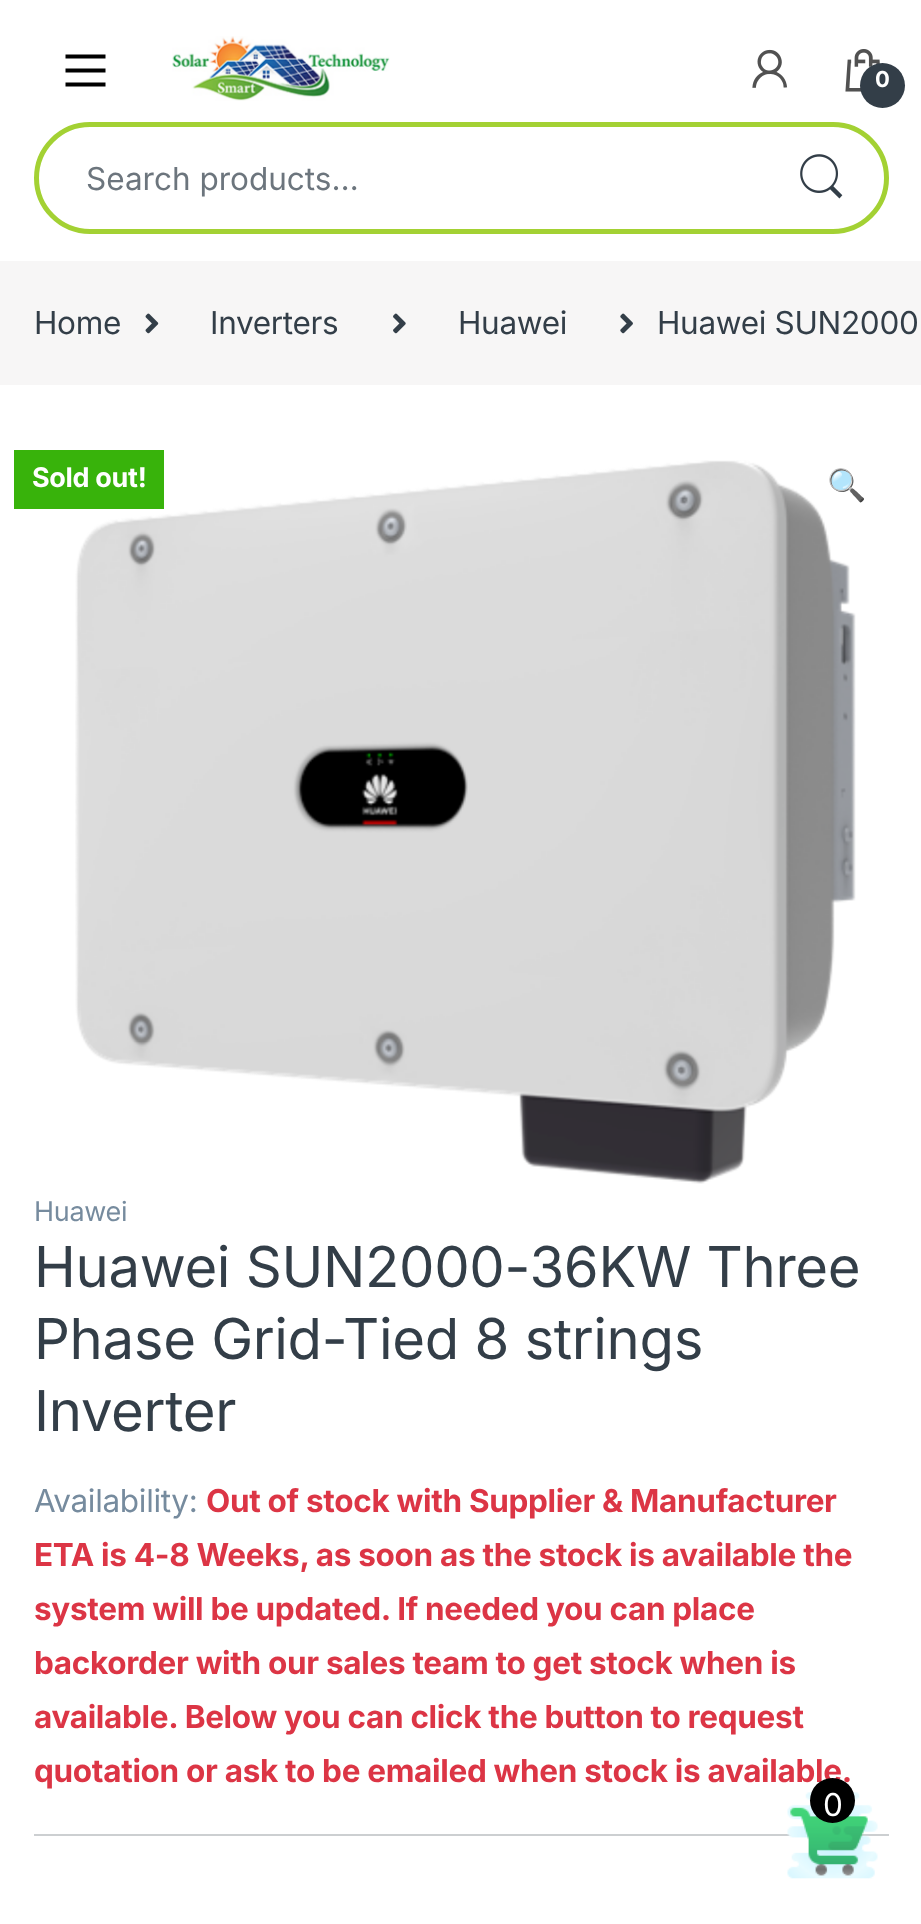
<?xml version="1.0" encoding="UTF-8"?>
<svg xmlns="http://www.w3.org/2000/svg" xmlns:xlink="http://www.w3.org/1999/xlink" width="921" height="1924">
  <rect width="100%" height="100%" fill="#ffffff" />
  <path d="M 65.5 86.5 v -4 h 40 v 4 z m 0 -18 h 40 v 4 h -40 z m 0 -14 h 40 v 4 h -40 z" fill="#000000" />
  <image x="172" y="36" width="218" height="65" xlink:href="image1.png" />
  <image x="752" y="49" width="36" height="39" xlink:href="image2.png" />
  <image x="845" y="49" width="35" height="43" xlink:href="image3.png" />
  <circle cx="882.5" cy="85.5" r="22.5" fill="#333e48" />
  <rect x="36.5" y="124.5" width="850" height="107" rx="53.5" fill="none" stroke="#a3d133" stroke-width="5" />
  <image x="800" y="154" width="43" height="45" xlink:href="image4.png" />
  <rect y="261" width="921" height="124" fill="#f7f6f6" />
  <image x="145" y="313" width="14" height="21" xlink:href="image5.png" />
  <image x="393" y="313" width="13" height="21" xlink:href="image6.png" />
  <image x="620" y="313" width="13" height="21" xlink:href="image7.png" />
  <image x="75" y="460" width="781" height="724" xlink:href="image8.png" />
  <rect x="14" y="450" width="150" height="59" fill="#38b30b" />
  <rect x="34" y="1834" width="855" height="2" fill="#cccfd1" />
  <image x="787" y="1792" width="91" height="87" xlink:href="image9.png" />
  <text x="875" y="87" style="font-family: Inter; font-size: 22px; font-weight: bold; letter-spacing: -0.32px; fill: #ffffff">0</text>
  <text x="86" y="190" style="font-family: Inter; font-size: 31.5px; fill: #6c757d">Search products…</text>
  <text x="34" y="334" style="font-family: Inter; font-size: 31.5px; letter-spacing: -0.32px; fill: #333e48">Home</text>
  <text x="210" y="334" style="font-family: Inter; font-size: 31.5px; letter-spacing: -0.32px; fill: #333e48">Inverters</text>
  <text x="458" y="334" style="font-family: Inter; font-size: 31.5px; letter-spacing: -0.32px; fill: #333e48">Huawei</text>
  <text x="657" y="334" style="font-family: Inter; font-size: 31.5px; letter-spacing: -0.32px; fill: #333e48">Huawei SUN2000</text>
  <text x="32" y="487" style="font-family: Inter; font-size: 27px; font-weight: bold; letter-spacing: -0.32px; fill: #ffffff">Sold out!</text>
  <text x="827" y="496" style="font-family: Noto Color Emoji; font-size: 31.5px; letter-spacing: -0.32px; fill: #333e48">🔍</text>
  <text x="34" y="1221" style="font-family: Inter; font-size: 27px; letter-spacing: -0.32px; fill: #768b9e">Huawei</text>
  <text x="34" y="1287" style="font-family: Inter; font-size: 56.25px; letter-spacing: -0.32px; fill: #333e48">Huawei SUN2000-36KW Three</text>
  <text x="34" y="1359" style="font-family: Inter; font-size: 56.25px; letter-spacing: -0.32px; fill: #333e48">Phase Grid-Tied 8 strings</text>
  <text x="34" y="1431" style="font-family: Inter; font-size: 56.25px; letter-spacing: -0.32px; fill: #333e48">Inverter</text>
  <text x="34" y="1512" style="font-family: Inter; font-size: 31.5px; letter-spacing: -0.32px; fill: #768b9e">Availability:</text>
  <text x="206" y="1512" style="font-family: Inter; font-size: 31.5px; font-weight: bold; letter-spacing: -0.32px; fill: #dc3545">Out of stock with Supplier &amp; Manufacturer</text>
  <text x="34" y="1566" style="font-family: Inter; font-size: 31.5px; font-weight: bold; letter-spacing: -0.32px; fill: #dc3545">ETA is 4-8 Weeks, as soon as the stock is available the</text>
  <text x="34" y="1620" style="font-family: Inter; font-size: 31.5px; font-weight: bold; letter-spacing: -0.32px; fill: #dc3545">system will be updated. If needed you can place</text>
  <text x="34" y="1674" style="font-family: Inter; font-size: 31.5px; font-weight: bold; letter-spacing: -0.32px; fill: #dc3545">backorder with our sales team to get stock when is</text>
  <text x="34" y="1728" style="font-family: Inter; font-size: 31.5px; font-weight: bold; letter-spacing: -0.32px; fill: #dc3545">available. Below you can click the button to request</text>
  <text x="34" y="1782" style="font-family: Inter; font-size: 31.5px; font-weight: bold; letter-spacing: -0.32px; fill: #dc3545">quotation or ask to be emailed when stock is available.</text>
  <circle cx="832.5" cy="1800.5" r="22.5" fill="#000000" />
  <text x="823" y="1816" style="font-family: Inter; font-size: 31.5px; letter-spacing: -0.32px; fill: #ffffff">0</text>
</svg>
